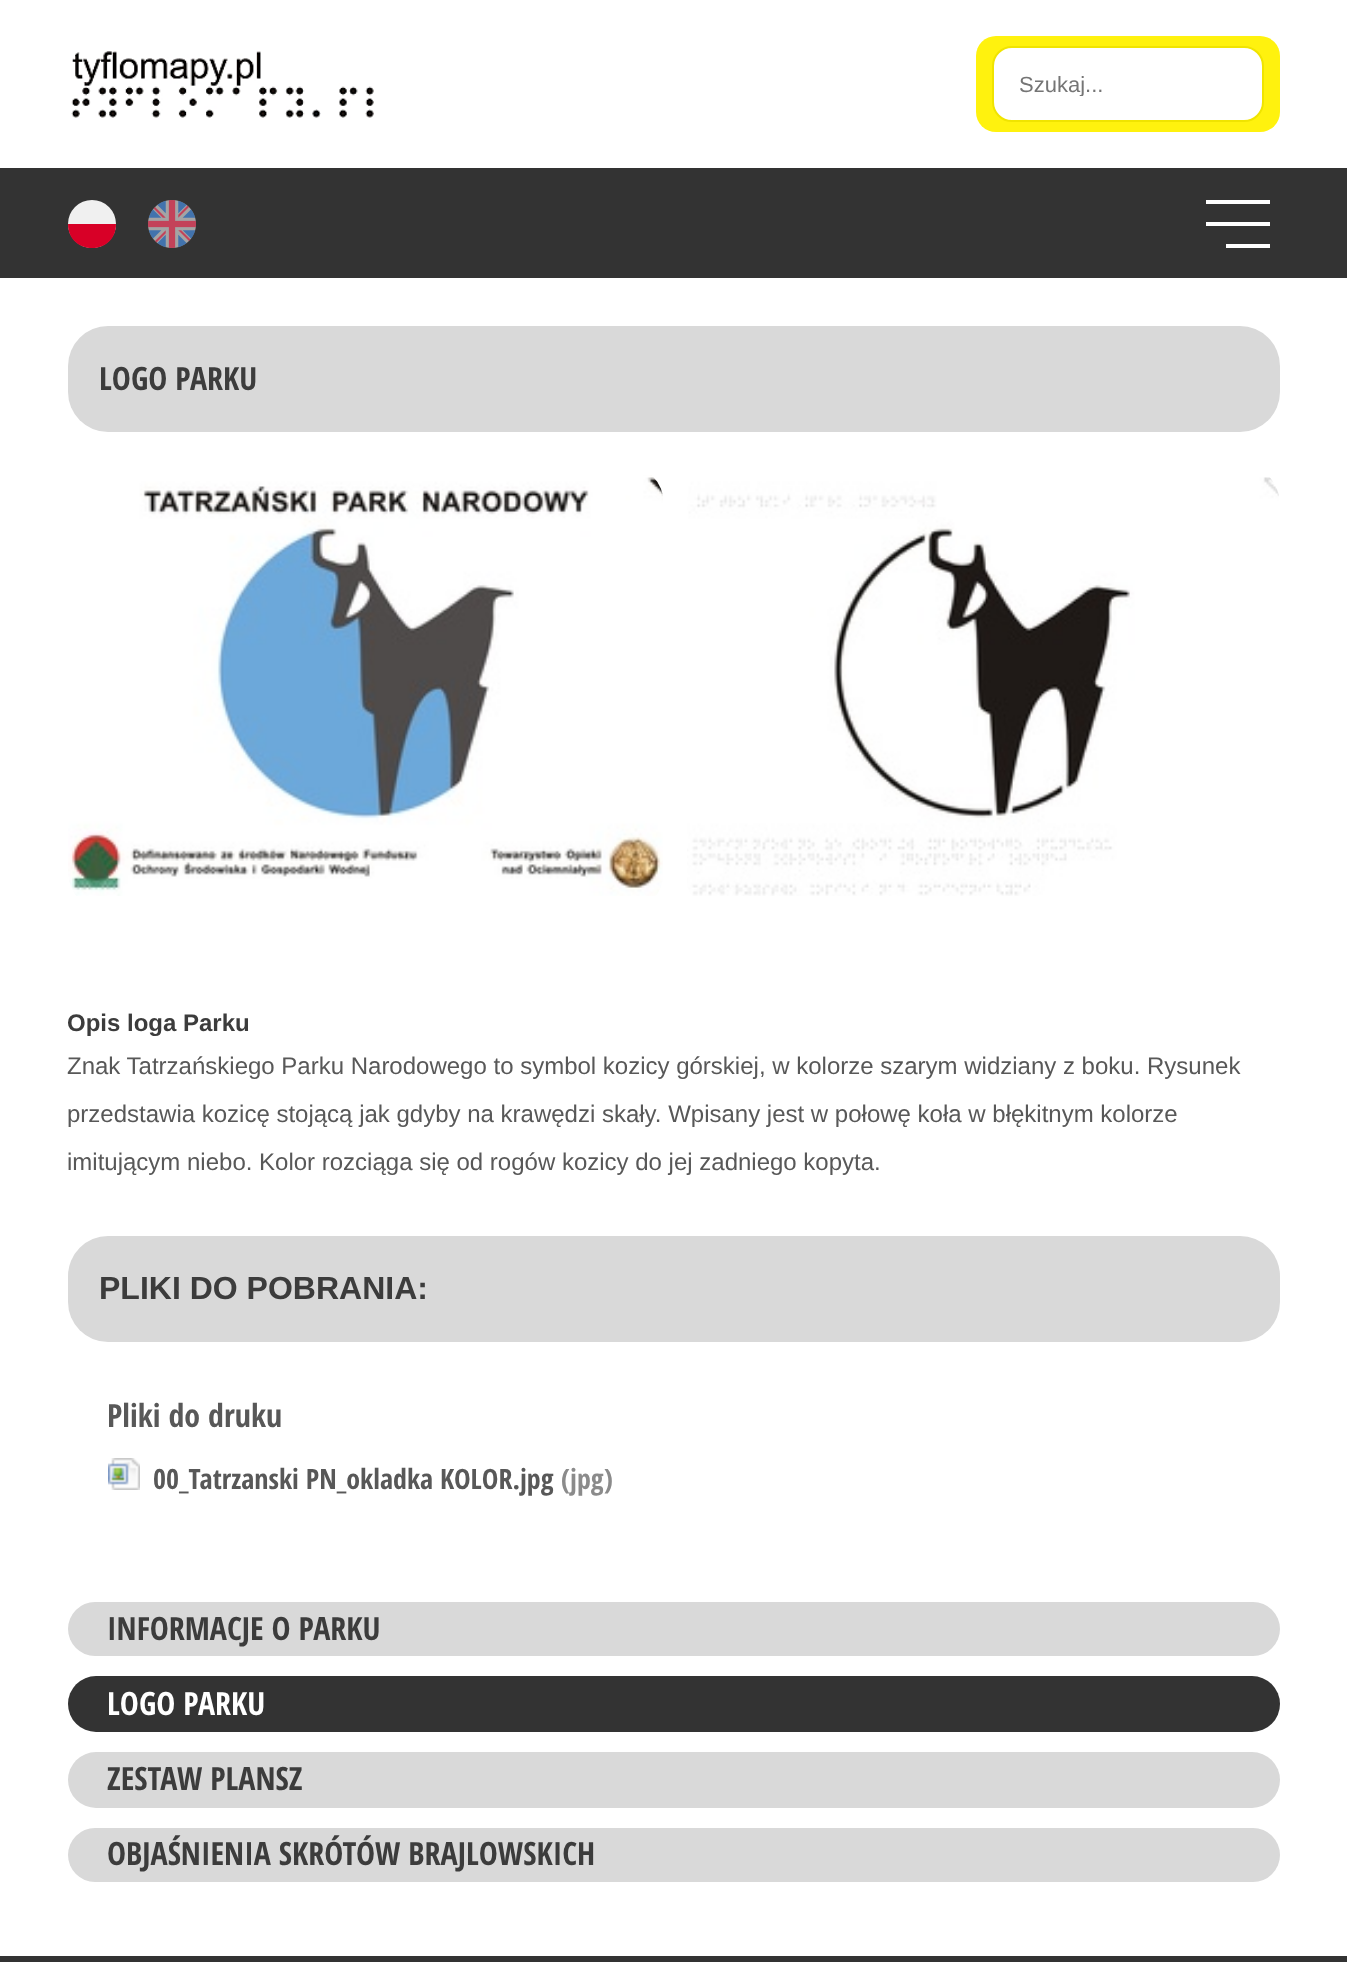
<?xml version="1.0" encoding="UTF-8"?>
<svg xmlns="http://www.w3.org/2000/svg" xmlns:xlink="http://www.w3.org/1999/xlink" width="1347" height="1962">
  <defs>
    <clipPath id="clip1"><rect x="1018" y="72" width="220" height="24" /></clipPath>
  </defs>
  <rect width="100%" height="100%" fill="#ffffff" />
  <image x="71" y="51" width="303" height="67" xlink:href="image1.png" />
  <rect x="976" y="36" width="304" height="96" rx="20" fill="#fff20e" />
  <rect x="993" y="47" width="270" height="74" rx="19" fill="#ffffff" stroke="#f0e400" stroke-width="2" />
  <rect y="168" width="1347" height="110" fill="#333333" />
  <circle cx="92" cy="224" r="24" fill="#f0f0f0" />
  <path d="M 116 224 c 0 32 -48 32 -48 0" fill="#d80027" />
  <image x="148" y="200" width="48" height="48" xlink:href="image2.png" />
  <rect x="1206" y="200" width="64" height="4" fill="#ffffff" />
  <rect x="1206" y="222" width="64" height="4" fill="#ffffff" />
  <rect x="1226" y="244" width="44" height="4" fill="#ffffff" />
  <rect x="68" y="326" width="1212" height="106" rx="40" fill="#d9d9d9" />
  <image x="68" y="475" width="595" height="421" xlink:href="image3.png" />
  <image x="687" y="477" width="592" height="419" xlink:href="image4.png" />
  <rect x="68" y="1236" width="1212" height="106" rx="40" fill="#d9d9d9" />
  <image x="108" y="1458" width="32" height="32" xlink:href="image5.png" />
  <rect x="68" y="1602" width="1212" height="54" rx="27" fill="#d9d9d9" />
  <rect x="68" y="1676" width="1212" height="56" rx="28" fill="#333333" />
  <rect x="68" y="1752" width="1212" height="56" rx="28" fill="#d9d9d9" />
  <rect x="68" y="1828" width="1212" height="54" rx="27" fill="#d9d9d9" />
  <rect y="1956" width="1347" height="6" fill="#333333" />
  <g clip-path="url(#clip1)">
    <text x="1019" y="92" style="font-family: Liberation Sans; font-size: 22px; fill: #757575">Szukaj...</text>
  </g>
  <text x="99" y="390" style="font-family: Open Sans Condensed; font-size: 32px; font-weight: bold; fill: #3c3c3c">LOGO PARKU</text>
  <text x="67" y="1031" style="font-family: Liberation Sans; font-size: 24px; font-weight: bold; fill: #3c3c3c">Opis loga Parku</text>
  <text x="67" y="1074" style="font-family: Liberation Sans; font-size: 24px; fill: #585858">Znak Tatrzańskiego Parku Narodowego to symbol kozicy górskiej, w kolorze szarym widziany z boku. Rysunek</text>
  <text x="67" y="1122" style="font-family: Liberation Sans; font-size: 24px; fill: #585858">przedstawia kozicę stojącą jak gdyby na krawędzi skały. Wpisany jest w połowę koła w błękitnym kolorze</text>
  <text x="67" y="1170" style="font-family: Liberation Sans; font-size: 24px; fill: #585858">imitującym niebo. Kolor rozciąga się od rogów kozicy do jej zadniego kopyta.</text>
  <text x="99" y="1299" style="font-family: Liberation Sans; font-size: 32px; font-weight: bold; fill: #3c3c3c">PLIKI DO POBRANIA:</text>
  <text x="107" y="1427" style="font-family: Open Sans Condensed; font-size: 32px; font-weight: bold; fill: #585858">Pliki do druku</text>
  <text x="153" y="1489" style="font-family: Open Sans Condensed; font-size: 28px; font-weight: bold; fill: #585858">00_Tatrzanski PN_okladka KOLOR.jpg</text>
  <text x="561" y="1489" style="font-family: Open Sans Condensed; font-size: 28px; font-weight: bold; fill: #8b8b8b">(jpg)</text>
  <text x="107" y="1640" style="font-family: Open Sans Condensed; font-size: 32px; font-weight: bold; fill: #3c3c3c">INFORMACJE O PARKU</text>
  <text x="107" y="1715" style="font-family: Open Sans Condensed; font-size: 32px; font-weight: bold; fill: #ffffff">LOGO PARKU</text>
  <text x="107" y="1790" style="font-family: Open Sans Condensed; font-size: 32px; font-weight: bold; fill: #3c3c3c">ZESTAW PLANSZ</text>
  <text x="107" y="1865" style="font-family: Open Sans Condensed; font-size: 32px; font-weight: bold; fill: #3c3c3c">OBJAŚNIENIA SKRÓTÓW BRAJLOWSKICH</text>
</svg>
